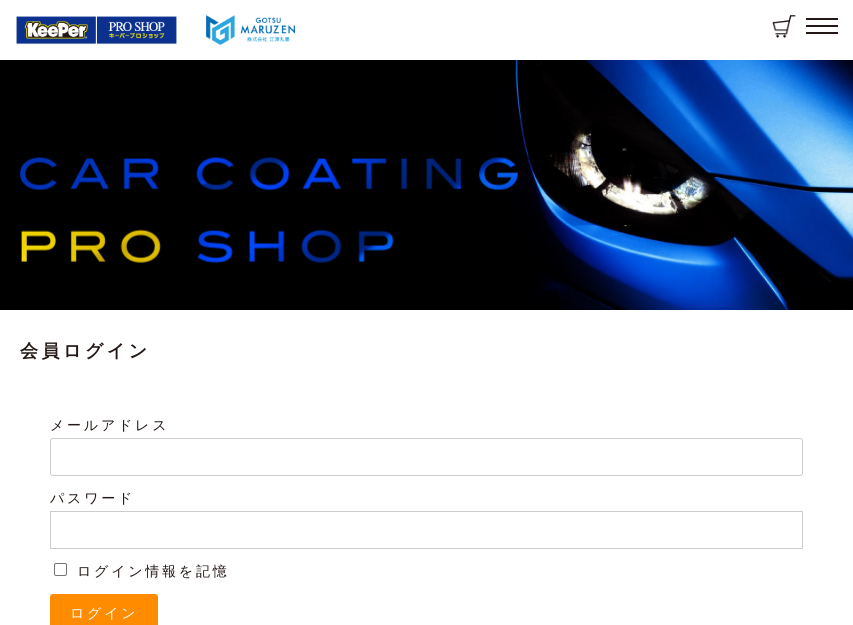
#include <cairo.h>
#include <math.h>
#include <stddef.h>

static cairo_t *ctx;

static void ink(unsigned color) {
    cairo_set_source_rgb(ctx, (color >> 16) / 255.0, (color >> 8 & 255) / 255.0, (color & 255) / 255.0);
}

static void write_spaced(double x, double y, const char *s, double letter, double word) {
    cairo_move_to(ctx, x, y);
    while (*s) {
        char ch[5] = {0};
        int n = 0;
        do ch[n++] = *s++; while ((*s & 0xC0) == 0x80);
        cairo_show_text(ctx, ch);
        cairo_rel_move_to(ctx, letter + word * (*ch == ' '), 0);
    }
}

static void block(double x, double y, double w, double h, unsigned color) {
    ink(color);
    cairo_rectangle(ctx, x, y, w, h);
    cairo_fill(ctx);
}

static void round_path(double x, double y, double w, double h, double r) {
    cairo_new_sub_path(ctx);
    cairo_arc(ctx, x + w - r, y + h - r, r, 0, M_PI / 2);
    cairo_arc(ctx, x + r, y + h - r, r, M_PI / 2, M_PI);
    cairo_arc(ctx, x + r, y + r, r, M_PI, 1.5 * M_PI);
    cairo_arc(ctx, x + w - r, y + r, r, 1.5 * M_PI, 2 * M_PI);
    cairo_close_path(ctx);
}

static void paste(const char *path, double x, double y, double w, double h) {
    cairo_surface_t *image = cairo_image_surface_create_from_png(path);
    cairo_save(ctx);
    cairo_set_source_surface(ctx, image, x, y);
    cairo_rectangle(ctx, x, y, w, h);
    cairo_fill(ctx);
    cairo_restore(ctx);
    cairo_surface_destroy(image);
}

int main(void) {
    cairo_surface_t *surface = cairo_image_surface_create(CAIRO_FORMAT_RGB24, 853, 625);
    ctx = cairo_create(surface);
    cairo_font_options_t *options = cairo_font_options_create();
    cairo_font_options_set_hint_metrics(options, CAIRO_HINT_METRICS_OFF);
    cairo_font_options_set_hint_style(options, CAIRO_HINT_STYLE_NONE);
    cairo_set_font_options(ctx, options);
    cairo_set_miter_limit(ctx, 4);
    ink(0xffffff);
    cairo_paint(ctx);
    paste("pic1.png", 16, 16, 161, 29);
    paste("pic2.png", 206, 15, 89, 30);
    paste("pic3.png", 772, 15, 24, 23);
    block(806, 18, 32, 2, 0x231815);
    block(806, 25, 32, 2, 0x231815);
    block(806, 32, 32, 2, 0x231815);
    paste("pic4.png", 0, 60, 853, 250);
    paste("pic5.png", 20, 157, 498, 106);
    cairo_select_font_face(ctx, "WenQuanYi Zen Hei", CAIRO_FONT_SLANT_NORMAL, CAIRO_FONT_WEIGHT_BOLD);
    cairo_set_font_size(ctx, 18);
    write_spaced(20, 357, "会員ログイン", 3.5, 0);
    cairo_select_font_face(ctx, "WenQuanYi Zen Hei Medium", CAIRO_FONT_SLANT_NORMAL, CAIRO_FONT_WEIGHT_NORMAL);
    cairo_set_font_size(ctx, 14);
    write_spaced(50, 430, "メールアドレス", 2.75, 0);
    round_path(50.5, 438.5, 752, 37, 2.5);
    ink(0xcccccc);
    cairo_set_line_width(ctx, 1);
    cairo_stroke(ctx);
    ink(0x231815);
    write_spaced(50, 503, "パスワード", 2.75, 0);
    cairo_rectangle(ctx, 50.5, 511.5, 752, 37);
    ink(0xcccccc);
    cairo_stroke(ctx);
    round_path(54.5, 563.5, 12, 12, 1.5);
    ink(0x767676);
    cairo_stroke(ctx);
    ink(0x231815);
    write_spaced(77, 576, "ログイン情報を記憶", 2.75, 0);
    ink(0xff8c00);
    round_path(50, 594, 108, 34, 3);
    cairo_fill(ctx);
    ink(0xffffff);
    write_spaced(70, 618, "ログイン", 2.75, 0);
    cairo_surface_write_to_png(surface, "screenshot.png");
    cairo_font_options_destroy(options);
    cairo_destroy(ctx);
    cairo_surface_destroy(surface);
    return 0;
}
